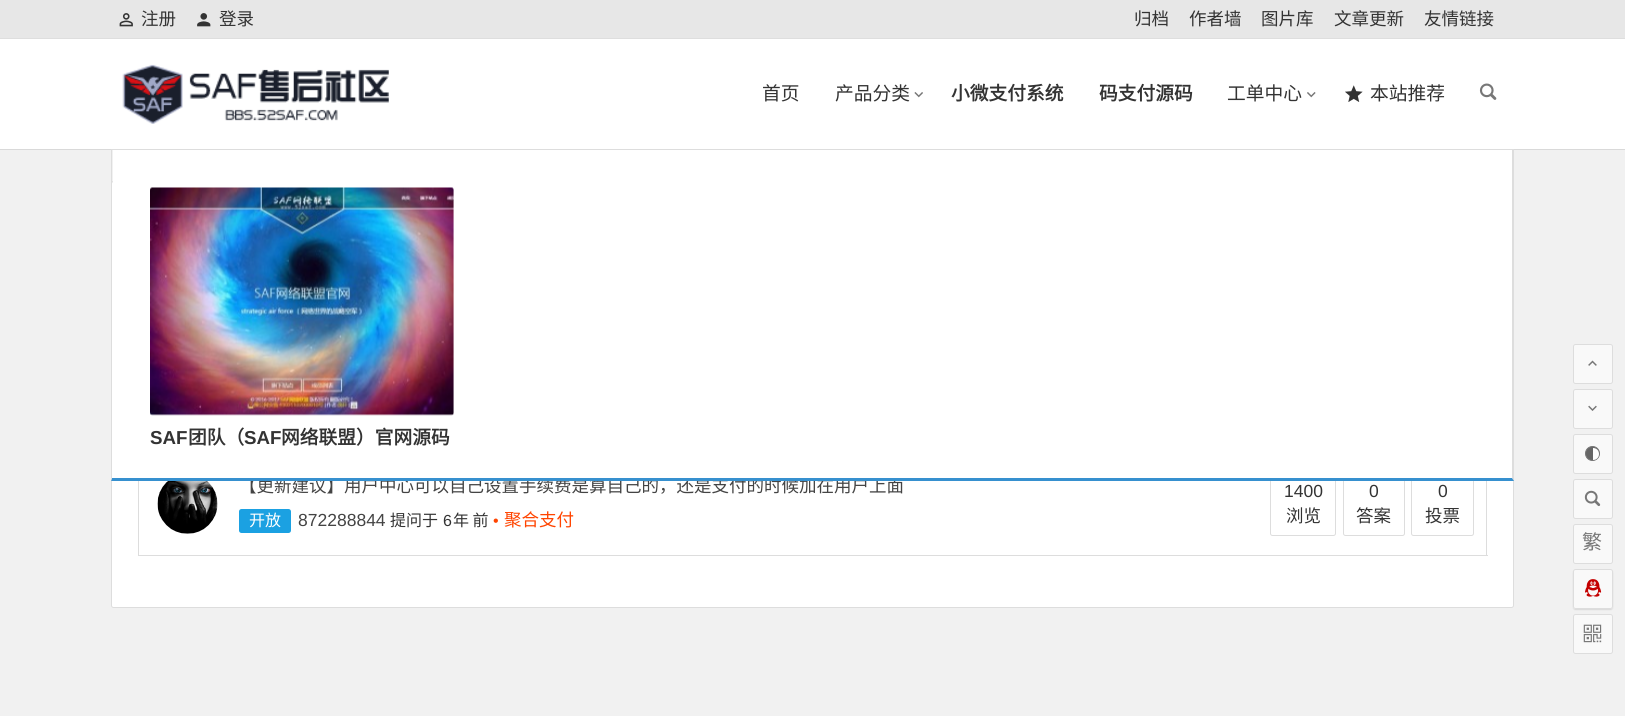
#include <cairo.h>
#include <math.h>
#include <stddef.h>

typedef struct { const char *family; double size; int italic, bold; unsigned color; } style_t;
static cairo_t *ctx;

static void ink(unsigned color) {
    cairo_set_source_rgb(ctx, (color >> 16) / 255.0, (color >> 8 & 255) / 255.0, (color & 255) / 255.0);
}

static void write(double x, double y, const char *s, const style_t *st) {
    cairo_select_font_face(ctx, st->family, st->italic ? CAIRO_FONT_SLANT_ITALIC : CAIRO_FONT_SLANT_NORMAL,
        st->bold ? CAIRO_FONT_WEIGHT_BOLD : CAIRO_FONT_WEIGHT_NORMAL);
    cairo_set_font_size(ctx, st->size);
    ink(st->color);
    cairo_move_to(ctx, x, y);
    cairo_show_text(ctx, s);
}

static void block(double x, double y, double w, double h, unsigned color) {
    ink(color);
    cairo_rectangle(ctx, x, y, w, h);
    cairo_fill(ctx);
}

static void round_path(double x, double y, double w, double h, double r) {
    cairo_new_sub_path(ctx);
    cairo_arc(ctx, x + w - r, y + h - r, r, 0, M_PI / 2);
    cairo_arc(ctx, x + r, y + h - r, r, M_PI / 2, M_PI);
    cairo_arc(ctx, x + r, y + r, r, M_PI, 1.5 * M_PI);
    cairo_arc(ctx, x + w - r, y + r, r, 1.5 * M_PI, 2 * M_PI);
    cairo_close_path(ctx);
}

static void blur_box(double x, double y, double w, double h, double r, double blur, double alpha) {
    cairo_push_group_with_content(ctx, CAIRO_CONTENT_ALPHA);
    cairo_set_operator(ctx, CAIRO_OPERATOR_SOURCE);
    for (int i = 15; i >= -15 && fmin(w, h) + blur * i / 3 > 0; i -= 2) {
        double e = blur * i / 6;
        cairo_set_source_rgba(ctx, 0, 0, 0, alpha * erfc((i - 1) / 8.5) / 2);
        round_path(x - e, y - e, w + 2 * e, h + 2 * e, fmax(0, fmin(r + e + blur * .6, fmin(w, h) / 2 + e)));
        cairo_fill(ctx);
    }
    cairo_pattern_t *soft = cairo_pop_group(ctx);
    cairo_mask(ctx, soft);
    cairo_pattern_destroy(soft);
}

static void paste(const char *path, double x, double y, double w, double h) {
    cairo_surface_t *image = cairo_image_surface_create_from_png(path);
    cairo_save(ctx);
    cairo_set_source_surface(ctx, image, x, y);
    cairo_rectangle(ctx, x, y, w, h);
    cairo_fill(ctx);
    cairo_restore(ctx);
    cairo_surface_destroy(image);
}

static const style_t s1 = {"Noto Sans CJK SC", 17.5, 0, 0, 0x333333};
static const style_t s2 = {"Noto Sans CJK SC", 18.75, 0, 0, 0x333333};
static const style_t s3 = {"Noto Sans CJK SC", 17.5, 0, 0, 0x444444};
static const style_t s4 = {"Liberation Sans", 18.75, 0, 1, 0x333333};
static const style_t s5 = {"Noto Sans CJK SC", 18.75, 0, 1, 0x333333};
static const style_t s6 = {"Liberation Sans", 17.5, 0, 0, 0x333333};
static const style_t s7 = {"Noto Sans CJK SC", 16, 0, 0, 0xffffff};
static const style_t s8 = {"Liberation Sans", 17.5, 0, 0, 0x444444};
static const style_t s9 = {"Noto Sans CJK SC", 16, 0, 0, 0x333333};
static const style_t s10 = {"Liberation Sans", 16, 0, 0, 0x333333};
static const style_t s11 = {"Liberation Sans", 16, 0, 0, 0xff4400};
static const style_t s12 = {"Noto Sans CJK SC", 17.5, 0, 0, 0xff4400};
static const style_t s13 = {"Noto Sans CJK SC", 20, 0, 0, 0x777777};

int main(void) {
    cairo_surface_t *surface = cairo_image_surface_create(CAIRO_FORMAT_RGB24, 1625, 716);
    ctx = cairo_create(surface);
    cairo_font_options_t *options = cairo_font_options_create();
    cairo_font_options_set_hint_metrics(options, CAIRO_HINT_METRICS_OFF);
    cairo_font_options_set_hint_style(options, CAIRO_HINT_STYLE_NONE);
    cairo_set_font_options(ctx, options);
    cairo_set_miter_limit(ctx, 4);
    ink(0xf1f1f1);
    cairo_paint(ctx);
    block(0, 0, 1625, 38, 0xe7e7e7);
    block(0, 38, 1625, 1, 0xdedede);
    paste("pic1.png", 119, 13, 14, 14);
    write(141, 25, "注册", &s1);
    paste("pic2.png", 197, 13, 14, 14);
    write(219, 25, "登录", &s1);
    write(1134, 25, "归档", &s1);
    write(1189, 25, "作者墙", &s1);
    write(1261, 25, "图片库", &s1);
    write(1334, 25, "文章更新", &s1);
    write(1424, 25, "友情链接", &s1);
    block(0, 149, 1625, 1, 0xd9d9d9);
    block(0, 39, 1625, 110, 0xffffff);
    paste("pic3.png", 122, 64, 267, 60);
    paste("pic4.png", 1479, 83, 18, 17);
    paste("pic5.png", 1345, 85, 18, 17);
    write(1370, 100, "本站推荐", &s2);
    ink(0xffffff);
    round_path(111.5, 181.5, 1402, 426, 2);
    cairo_fill_preserve(ctx);
    ink(0xdddddd);
    cairo_set_line_width(ctx, 1);
    cairo_stroke(ctx);
    write(239, 492, "【更新建议】用户中心可以自己设置手续费是算自己的，还是支付的时候加在用户上面", &s3);
    round_path(1270.5, 474.5, 65, 61, 2);
    ink(0xdddddd);
    cairo_stroke(ctx);
    round_path(1343.5, 474.5, 61, 61, 2);
    cairo_stroke(ctx);
    round_path(1411.5, 474.5, 62, 61, 2);
    cairo_stroke(ctx);
    block(113, 150, 1399, 328, 0xffffff);
    block(111, 149, 1403, 1, 0xdddddd);
    cairo_new_path(ctx);
    cairo_move_to(ctx, 1514, 149);
    cairo_line_to(ctx, 1514, 481);
    cairo_line_to(ctx, 1512, 478);
    cairo_line_to(ctx, 1512, 150);
    cairo_close_path(ctx);
    cairo_fill(ctx);
    ink(0x3690cf);
    cairo_new_path(ctx);
    cairo_move_to(ctx, 1514, 481);
    cairo_line_to(ctx, 111, 481);
    cairo_line_to(ctx, 112, 478);
    cairo_line_to(ctx, 1512, 478);
    cairo_close_path(ctx);
    cairo_fill(ctx);
    ink(0xdddddd);
    cairo_new_path(ctx);
    cairo_move_to(ctx, 111, 481);
    cairo_line_to(ctx, 111, 149);
    cairo_line_to(ctx, 112, 150);
    cairo_line_to(ctx, 112, 478);
    cairo_close_path(ctx);
    cairo_fill(ctx);
    paste("pic6.png", 150, 187, 304, 229);
    write(150, 444, "SAF", &s4);
    write(188, 444, "团队（", &s5);
    write(244, 444, "SAF", &s4);
    write(281, 444, "网络联盟）官网源码", &s5);
    write(762, 100, "首页", &s2);
    write(835, 100, "产品分类", &s2);
    paste("pic7.png", 914, 92, 9, 6);
    write(951, 100, "小微支付系统", &s5);
    write(1099, 100, "码支付源码", &s5);
    write(1227, 100, "工单中心", &s2);
    paste("pic8.png", 1307, 92, 9, 6);
    block(1486, 481, 1, 75, 0xdddddd);
    block(138, 555, 1350, 1, 0xdddddd);
    block(138, 481, 1, 75, 0xdddddd);
    write(1284, 497, "1400", &s6);
    write(1286, 522, "浏览", &s1);
    write(1369, 497, "0", &s6);
    write(1356, 522, "答案", &s1);
    write(1438, 497, "0", &s6);
    write(1425, 522, "投票", &s1);
    ink(0x1ba1e2);
    round_path(239, 509, 52, 24, 2.5);
    cairo_fill(ctx);
    write(249, 526, "开放", &s7);
    paste("pic9.png", 157, 481, 61, 53);
    write(298, 526, "872288844", &s8);
    write(390, 526, "提问于", &s9);
    write(443, 526, "6", &s10);
    write(453, 526, "年 前", &s9);
    write(493, 526, "•", &s11);
    write(504, 526, "聚合支付", &s12);
    ink(0xf9f9f9);
    round_path(1573.5, 344.5, 39, 39, 2);
    cairo_fill_preserve(ctx);
    ink(0xdddddd);
    cairo_stroke(ctx);
    paste("pic10.png", 1588, 360, 9, 6);
    ink(0xf9f9f9);
    round_path(1573.5, 389.5, 39, 39, 2);
    cairo_fill_preserve(ctx);
    ink(0xdddddd);
    cairo_stroke(ctx);
    paste("pic11.png", 1588, 405, 9, 6);
    ink(0xf9f9f9);
    round_path(1573.5, 434.5, 39, 39, 2);
    cairo_fill_preserve(ctx);
    ink(0xdddddd);
    cairo_stroke(ctx);
    ink(0x666666);
    cairo_arc(ctx, 1592.5, 453.5, 7, 0, 2 * M_PI);
    cairo_fill_preserve(ctx);
    ink(0x777777);
    cairo_stroke(ctx);
    ink(0xffffff);
    cairo_new_path(ctx);
    cairo_move_to(ctx, 1593, 448);
    cairo_curve_to(ctx, 1596.5, 448, 1599, 450.5, 1599, 454);
    cairo_curve_to(ctx, 1599, 457.5, 1596.5, 460, 1593, 460);
    cairo_close_path(ctx);
    cairo_fill(ctx);
    ink(0xf9f9f9);
    round_path(1573.5, 479.5, 39, 39, 2);
    cairo_fill_preserve(ctx);
    ink(0xdddddd);
    cairo_stroke(ctx);
    paste("pic12.png", 1584, 490, 17, 17);
    ink(0xf9f9f9);
    round_path(1573.5, 524.5, 39, 39, 2);
    cairo_fill_preserve(ctx);
    ink(0xdddddd);
    cairo_stroke(ctx);
    write(1582, 549, "繁", &s13);
    cairo_save(ctx);
    cairo_set_fill_rule(ctx, CAIRO_FILL_RULE_EVEN_ODD);
    cairo_new_path(ctx);
    cairo_move_to(ctx, 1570, 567);
    cairo_line_to(ctx, 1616, 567);
    cairo_line_to(ctx, 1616, 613);
    cairo_line_to(ctx, 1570, 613);
    cairo_close_path(ctx);
    cairo_move_to(ctx, 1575.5, 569);
    cairo_line_to(ctx, 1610.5, 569);
    cairo_curve_to(ctx, 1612, 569, 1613, 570, 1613, 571.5);
    cairo_line_to(ctx, 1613, 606.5);
    cairo_curve_to(ctx, 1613, 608, 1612, 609, 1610.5, 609);
    cairo_line_to(ctx, 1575.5, 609);
    cairo_curve_to(ctx, 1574, 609, 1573, 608, 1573, 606.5);
    cairo_line_to(ctx, 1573, 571.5);
    cairo_curve_to(ctx, 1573, 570, 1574, 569, 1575.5, 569);
    cairo_close_path(ctx);
    cairo_clip(ctx);
    ink(0x000000);
    blur_box(1573, 570, 40, 40, 2.5, 0.5, 0.1);
    cairo_restore(ctx);
    cairo_set_source_rgba(ctx, 1, 1, 1, 0.6);
    round_path(1573.5, 569.5, 39, 39, 2);
    cairo_fill_preserve(ctx);
    ink(0xdddddd);
    cairo_stroke(ctx);
    paste("pic13.png", 1585, 579, 17, 18);
    ink(0xf9f9f9);
    round_path(1573.5, 614.5, 39, 39, 2);
    cairo_fill_preserve(ctx);
    ink(0xdddddd);
    cairo_stroke(ctx);
    paste("pic14.png", 1583, 624, 19, 19);
    cairo_surface_write_to_png(surface, "screenshot.png");
    cairo_font_options_destroy(options);
    cairo_destroy(ctx);
    cairo_surface_destroy(surface);
    return 0;
}
